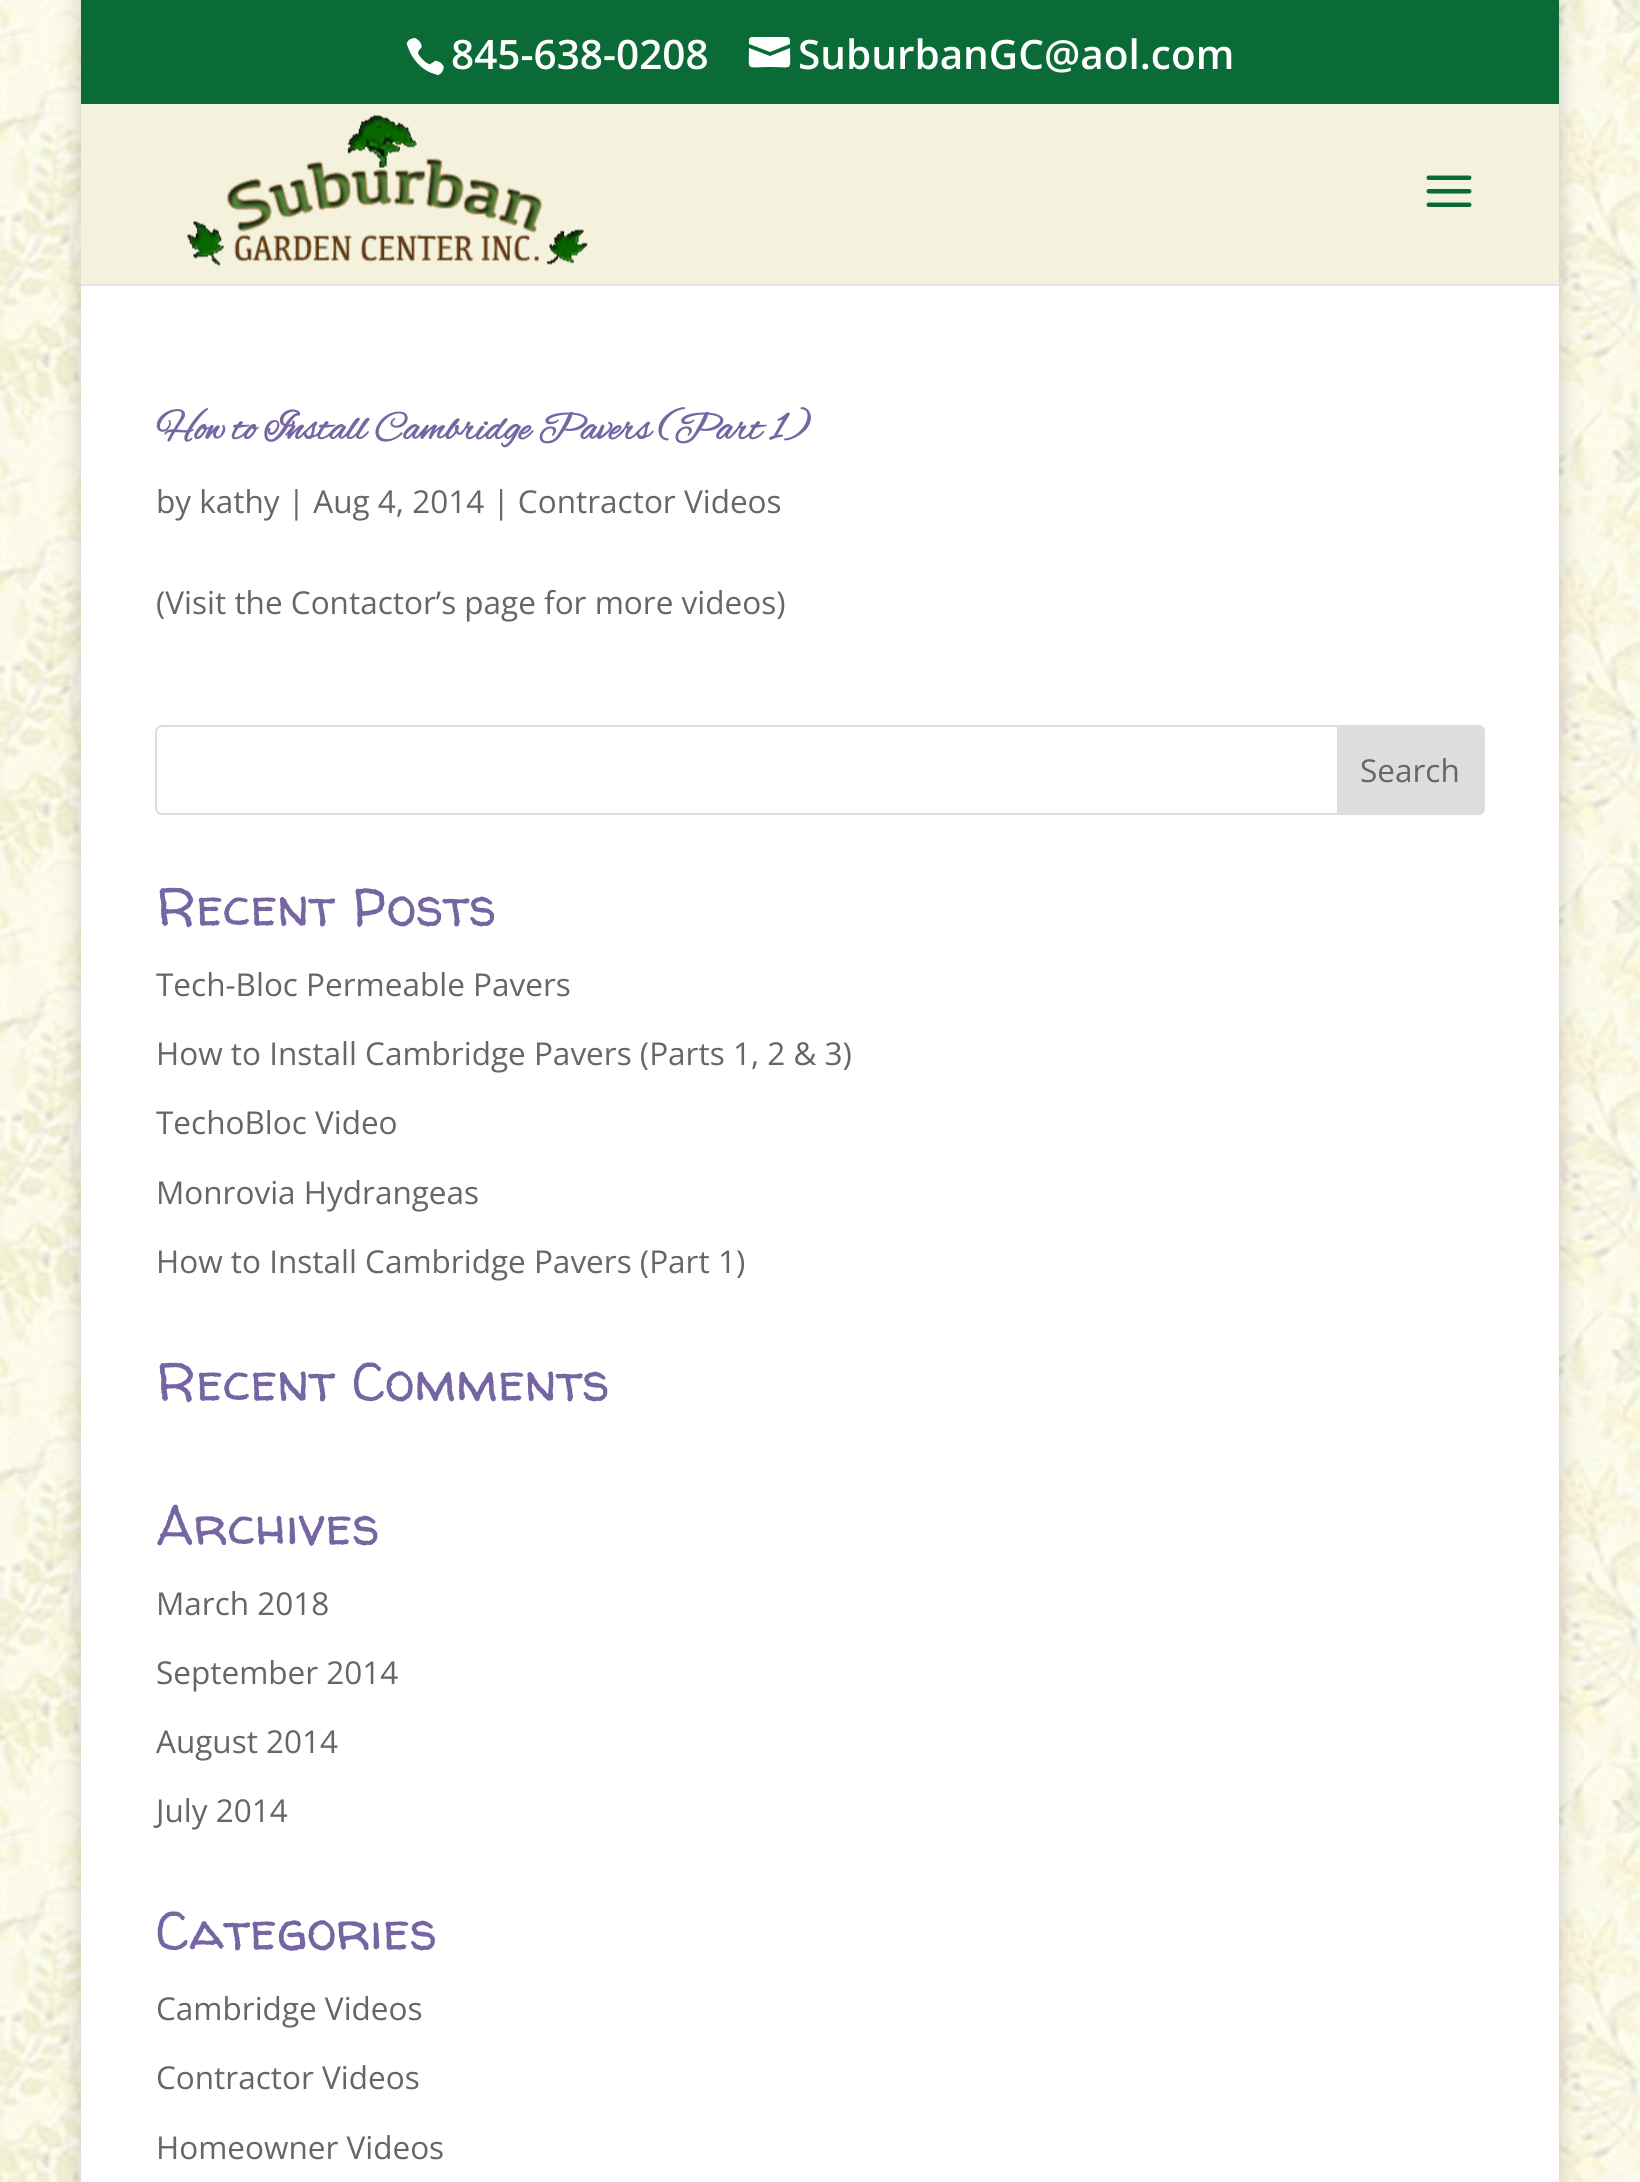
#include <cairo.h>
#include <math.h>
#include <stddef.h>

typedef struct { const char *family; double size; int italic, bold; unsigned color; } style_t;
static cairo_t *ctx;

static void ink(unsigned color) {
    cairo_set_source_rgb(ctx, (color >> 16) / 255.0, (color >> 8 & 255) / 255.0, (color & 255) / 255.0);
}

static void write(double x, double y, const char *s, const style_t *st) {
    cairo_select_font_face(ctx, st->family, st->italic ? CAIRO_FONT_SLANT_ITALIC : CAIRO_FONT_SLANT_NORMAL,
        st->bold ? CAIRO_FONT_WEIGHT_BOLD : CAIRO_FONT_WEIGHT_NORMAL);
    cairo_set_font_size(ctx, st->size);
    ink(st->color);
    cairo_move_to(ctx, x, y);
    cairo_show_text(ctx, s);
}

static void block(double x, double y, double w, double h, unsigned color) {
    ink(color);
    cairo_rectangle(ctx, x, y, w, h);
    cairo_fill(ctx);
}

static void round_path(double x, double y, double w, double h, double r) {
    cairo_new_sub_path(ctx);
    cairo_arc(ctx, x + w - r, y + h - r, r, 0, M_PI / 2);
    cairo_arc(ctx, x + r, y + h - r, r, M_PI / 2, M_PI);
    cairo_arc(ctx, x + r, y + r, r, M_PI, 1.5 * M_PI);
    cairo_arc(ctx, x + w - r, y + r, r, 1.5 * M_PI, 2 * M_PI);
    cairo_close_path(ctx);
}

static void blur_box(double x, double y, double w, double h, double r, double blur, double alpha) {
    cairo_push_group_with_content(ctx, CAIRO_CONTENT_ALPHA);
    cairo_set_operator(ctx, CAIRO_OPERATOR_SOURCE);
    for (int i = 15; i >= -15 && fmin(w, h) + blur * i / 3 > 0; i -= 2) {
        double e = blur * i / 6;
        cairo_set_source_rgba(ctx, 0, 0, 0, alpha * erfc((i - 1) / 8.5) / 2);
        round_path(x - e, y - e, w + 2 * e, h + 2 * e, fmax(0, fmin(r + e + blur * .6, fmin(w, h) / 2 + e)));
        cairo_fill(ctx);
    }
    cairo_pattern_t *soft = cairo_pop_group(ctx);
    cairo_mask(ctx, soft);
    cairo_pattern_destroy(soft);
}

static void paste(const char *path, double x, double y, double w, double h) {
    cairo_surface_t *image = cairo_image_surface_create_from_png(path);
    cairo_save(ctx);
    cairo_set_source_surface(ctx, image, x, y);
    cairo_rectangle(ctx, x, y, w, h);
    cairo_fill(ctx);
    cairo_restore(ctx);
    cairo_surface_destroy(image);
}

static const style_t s1 = {"Open Sans SemiBold", 40.5, 0, 0, 0xffffff};
static const style_t s2 = {"Alex Brush", 40.5, 0, 1, 0x7665a3};
static const style_t s3 = {"Open Sans", 31.5, 0, 0, 0x666666};
static const style_t s4 = {"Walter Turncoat", 54, 0, 0, 0x7665a3};

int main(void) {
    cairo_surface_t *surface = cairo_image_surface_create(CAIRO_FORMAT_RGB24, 1640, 2182);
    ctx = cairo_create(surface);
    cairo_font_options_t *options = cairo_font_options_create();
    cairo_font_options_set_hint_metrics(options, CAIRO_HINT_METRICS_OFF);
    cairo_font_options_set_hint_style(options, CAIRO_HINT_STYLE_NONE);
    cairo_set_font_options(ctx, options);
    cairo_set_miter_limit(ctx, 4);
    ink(0xffffff);
    cairo_paint(ctx);
    paste("pic1.png", 0, 0, 1640, 2182);
    ink(0x000000);
    blur_box(81, 0, 1478, 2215, 0, 11, 0.2);
    block(81, 0, 1478, 104, 0x0a6b37);
    paste("pic2.png", 406, 38, 38, 38);
    write(451, 69, "845-638-0208", &s1);
    write(798, 69, "SuburbanGC@aol.com", &s1);
    cairo_new_path(ctx);
    cairo_move_to(ctx, 787, 37);
    cairo_line_to(ctx, 752, 37);
    cairo_curve_to(ctx, 748, 37, 749, 42, 749, 44);
    cairo_line_to(ctx, 770, 52);
    cairo_line_to(ctx, 790, 44);
    cairo_curve_to(ctx, 790, 42, 791, 37, 787, 37);
    cairo_close_path(ctx);
    cairo_move_to(ctx, 749, 48);
    cairo_curve_to(ctx, 749, 72, 745, 67, 770, 67);
    cairo_curve_to(ctx, 794, 67, 790, 72, 790, 48);
    cairo_line_to(ctx, 770, 56);
    cairo_close_path(ctx);
    cairo_fill(ctx);
    block(81, 284, 1478, 2, 0xe6e6e6);
    block(81, 104, 1478, 180, 0xf4f1dd);
    paste("pic3.png", 187, 115, 401, 151);
    paste("pic4.png", 1426, 175, 46, 32);
    block(81, 286, 1478, 1896, 0xffffff);
    write(156, 439, "How to Install Cambridge Pavers (Part 1)", &s2);
    write(156, 513, "by kathy | Aug 4, 2014 | Contractor Videos", &s3);
    write(156, 614, "(Visit the Contactor’s page for more videos)", &s3);
    round_path(156, 726, 1328, 88, 6);
    ink(0xdddddd);
    cairo_stroke(ctx);
    cairo_new_path(ctx);
    cairo_move_to(ctx, 1338, 726);
    cairo_line_to(ctx, 1478, 726);
    cairo_curve_to(ctx, 1481.5, 726, 1484, 728.5, 1484, 732);
    cairo_line_to(ctx, 1484, 808);
    cairo_curve_to(ctx, 1484, 811.5, 1481.5, 814, 1478, 814);
    cairo_line_to(ctx, 1338, 814);
    cairo_close_path(ctx);
    cairo_fill_preserve(ctx);
    cairo_stroke(ctx);
    write(1360, 782, "Search", &s3);
    write(156, 926, "Recent Posts", &s4);
    write(156, 996, "Tech-Bloc Permeable Pavers", &s3);
    write(156, 1065, "How to Install Cambridge Pavers (Parts 1, 2 & 3)", &s3);
    write(156, 1134, "TechoBloc Video", &s3);
    write(156, 1204, "Monrovia Hydrangeas", &s3);
    write(156, 1273, "How to Install Cambridge Pavers (Part 1)", &s3);
    write(156, 1401, "Recent Comments", &s4);
    write(156, 1545, "Archives", &s4);
    write(156, 1615, "March 2018", &s3);
    write(156, 1684, "September 2014", &s3);
    write(156, 1753, "August 2014", &s3);
    write(156, 1822, "July 2014", &s3);
    write(156, 1950, "Categories", &s4);
    write(156, 2020, "Cambridge Videos", &s3);
    write(156, 2089, "Contractor Videos", &s3);
    write(156, 2159, "Homeowner Videos", &s3);
    cairo_surface_write_to_png(surface, "screenshot.png");
    cairo_font_options_destroy(options);
    cairo_destroy(ctx);
    cairo_surface_destroy(surface);
    return 0;
}
